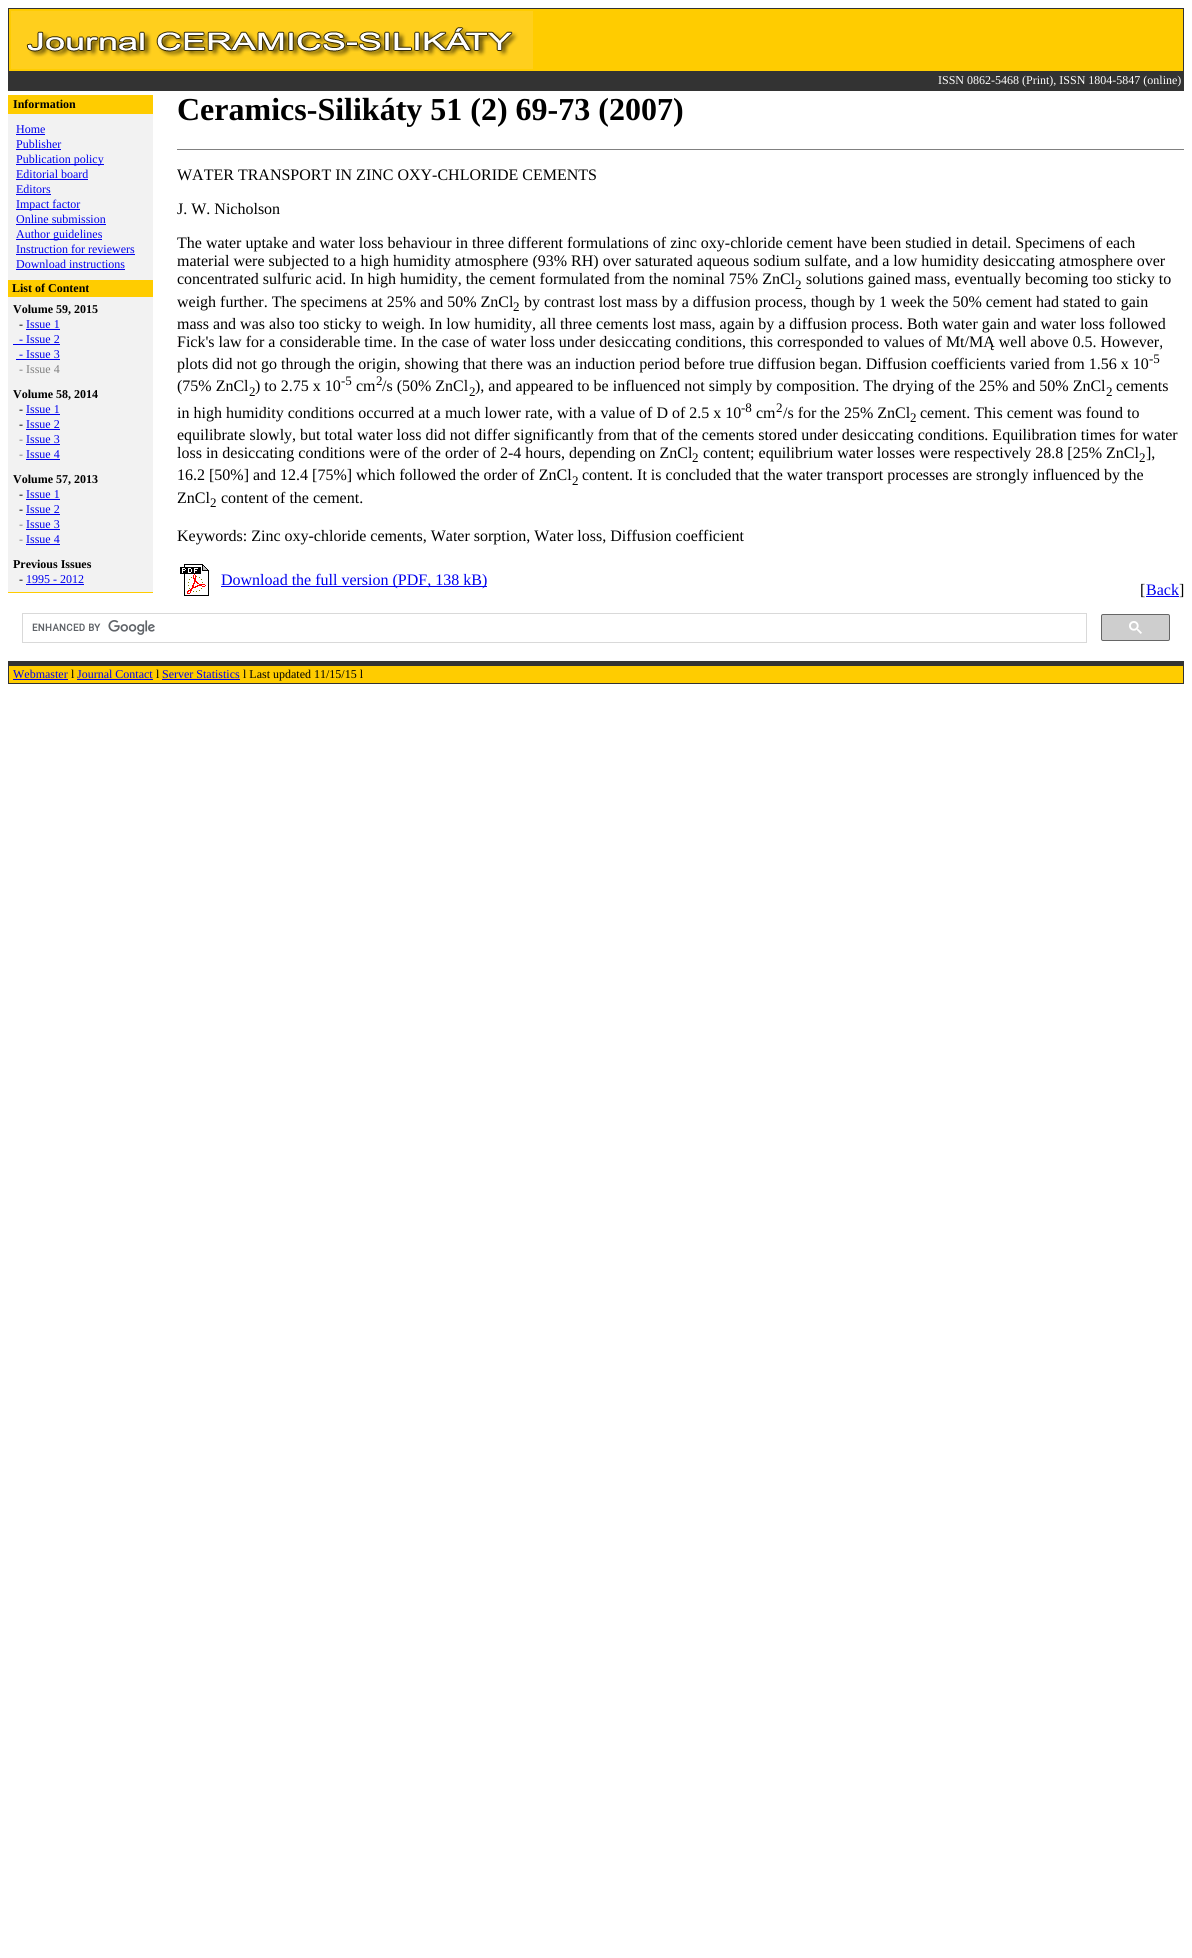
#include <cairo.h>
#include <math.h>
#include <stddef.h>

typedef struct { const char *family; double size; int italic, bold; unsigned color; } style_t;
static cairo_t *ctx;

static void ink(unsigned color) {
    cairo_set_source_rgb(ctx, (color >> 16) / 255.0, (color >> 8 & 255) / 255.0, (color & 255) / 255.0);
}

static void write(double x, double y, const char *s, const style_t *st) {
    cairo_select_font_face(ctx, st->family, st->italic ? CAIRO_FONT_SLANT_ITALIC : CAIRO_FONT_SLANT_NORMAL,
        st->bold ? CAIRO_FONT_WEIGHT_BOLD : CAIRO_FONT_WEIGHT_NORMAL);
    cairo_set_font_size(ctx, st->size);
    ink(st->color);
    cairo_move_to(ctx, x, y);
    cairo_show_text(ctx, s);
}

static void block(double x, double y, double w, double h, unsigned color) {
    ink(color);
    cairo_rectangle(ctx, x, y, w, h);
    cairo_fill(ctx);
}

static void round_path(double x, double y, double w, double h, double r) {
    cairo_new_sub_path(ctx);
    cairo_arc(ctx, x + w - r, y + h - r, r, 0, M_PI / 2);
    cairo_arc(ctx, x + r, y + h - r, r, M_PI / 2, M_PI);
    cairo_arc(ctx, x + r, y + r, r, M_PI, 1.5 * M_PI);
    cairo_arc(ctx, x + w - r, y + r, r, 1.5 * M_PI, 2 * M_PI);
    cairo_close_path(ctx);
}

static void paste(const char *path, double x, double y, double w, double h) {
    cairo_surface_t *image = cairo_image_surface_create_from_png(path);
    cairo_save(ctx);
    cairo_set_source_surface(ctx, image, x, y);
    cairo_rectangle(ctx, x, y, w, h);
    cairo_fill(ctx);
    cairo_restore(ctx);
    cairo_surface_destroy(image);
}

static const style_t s1 = {"Liberation Serif", 12, 0, 0, 0xffffff};
static const style_t s2 = {"Liberation Serif", 12, 0, 1, 0x000000};
static const style_t s3 = {"Liberation Serif", 12, 0, 0, 0x0000ee};
static const style_t s4 = {"Liberation Serif", 12, 0, 0, 0x000000};
static const style_t s5 = {"Liberation Serif", 12, 0, 0, 0x808080};
static const style_t s6 = {"Liberation Serif", 32, 0, 1, 0x000000};
static const style_t s7 = {"Liberation Serif", 16, 0, 0, 0x000000};
static const style_t s8 = {"Liberation Serif", 13, 0, 0, 0x000000};
static const style_t s9 = {"Liberation Serif", 16, 0, 0, 0x0000ee};

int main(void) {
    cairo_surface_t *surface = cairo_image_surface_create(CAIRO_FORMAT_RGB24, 1192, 1958);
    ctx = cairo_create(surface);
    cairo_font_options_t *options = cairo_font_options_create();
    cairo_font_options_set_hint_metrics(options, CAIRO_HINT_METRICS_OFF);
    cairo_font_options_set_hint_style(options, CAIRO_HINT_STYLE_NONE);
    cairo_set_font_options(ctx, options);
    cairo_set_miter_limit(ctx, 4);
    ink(0xffffff);
    cairo_paint(ctx);
    block(8, 8, 1176, 83, 0x333333);
    block(9, 9, 1174, 62, 0xffcc00);
    paste("pic1.png", 11, 11, 522, 58);
    write(938, 84, "ISSN 0862-5468 (Print), ISSN 1804-5847 (online)", &s1);
    block(8, 95, 145, 19, 0xffcc00);
    write(13, 108, "Information", &s2);
    block(8, 114, 145, 166, 0xf2f2f2);
    write(16, 133, "Home", &s3);
    block(16, 134, 29, 1, 0x0000ee);
    write(16, 148, "Publisher", &s3);
    block(16, 149, 45, 1, 0x0000ee);
    block(16, 164, 88, 1, 0x0000ee);
    write(16, 163, "Publication policy", &s3);
    write(16, 178, "Editorial board", &s3);
    block(16, 179, 72, 1, 0x0000ee);
    write(16, 193, "Editors", &s3);
    block(16, 194, 35, 1, 0x0000ee);
    block(16, 209, 64, 1, 0x0000ee);
    write(16, 208, "Impact factor", &s3);
    write(16, 223, "Online submission", &s3);
    block(16, 224, 90, 1, 0x0000ee);
    block(16, 239, 86, 1, 0x0000ee);
    write(16, 238, "Author guidelines", &s3);
    write(16, 253, "Instruction for reviewers", &s3);
    block(16, 254, 119, 1, 0x0000ee);
    write(16, 268, "Download instructions", &s3);
    block(16, 269, 109, 1, 0x0000ee);
    block(8, 280, 145, 17, 0xffcc00);
    write(12, 292, "List of Content", &s2);
    block(8, 297, 145, 295, 0xf2f2f2);
    write(13, 313, "Volume 59, 2015", &s2);
    write(19, 328, "-", &s4);
    write(26, 328, "Issue 1", &s3);
    block(26, 329, 34, 1, 0x0000ee);
    write(19, 343, "- Issue 2", &s3);
    block(13, 344, 47, 1, 0x0000ee);
    write(19, 358, "- Issue 3", &s3);
    block(16, 359, 44, 1, 0x0000ee);
    write(19, 373, "- Issue 4", &s5);
    write(13, 398, "Volume 58, 2014", &s2);
    write(19, 413, "-", &s4);
    write(26, 413, "Issue 1", &s3);
    block(26, 414, 34, 1, 0x0000ee);
    write(19, 428, "-", &s4);
    write(26, 428, "Issue 2", &s3);
    block(26, 429, 34, 1, 0x0000ee);
    write(19, 443, "-", &s5);
    write(26, 443, "Issue 3", &s3);
    block(26, 444, 34, 1, 0x0000ee);
    write(19, 458, "-", &s5);
    write(26, 458, "Issue 4", &s3);
    block(26, 459, 34, 1, 0x0000ee);
    write(13, 483, "Volume 57, 2013", &s2);
    write(19, 498, "-", &s4);
    write(26, 498, "Issue 1", &s3);
    block(26, 499, 34, 1, 0x0000ee);
    write(19, 513, "-", &s4);
    write(26, 513, "Issue 2", &s3);
    block(26, 514, 34, 1, 0x0000ee);
    write(19, 528, "-", &s5);
    write(26, 528, "Issue 3", &s3);
    block(26, 529, 34, 1, 0x0000ee);
    write(19, 543, "-", &s5);
    write(26, 543, "Issue 4", &s3);
    block(26, 544, 34, 1, 0x0000ee);
    write(13, 568, "Previous Issues", &s2);
    write(19, 583, "-", &s4);
    write(26, 583, "1995 - 2012", &s3);
    block(26, 584, 58, 1, 0x0000ee);
    block(8, 592, 145, 1, 0xffcc00);
    write(177, 120, "Ceramics-Silikáty 51 (2) 69-73 (2007)", &s6);
    block(177, 149, 1007, 1, 0x808080);
    write(177, 180, "WATER TRANSPORT IN ZINC OXY-CHLORIDE CEMENTS", &s7);
    write(177, 214, "J. W. Nicholson", &s7);
    write(177, 248, "The water uptake and water loss behaviour in three different formulations of zinc oxy-chloride cement have been studied in detail. Specimens of each", &s7);
    write(177, 266, "material were subjected to a high humidity atmosphere (93% RH) over saturated aqueous sodium sulfate, and a low humidity desiccating atmosphere over", &s7);
    write(177, 284, "concentrated sulfuric acid. In high humidity, the cement formulated from the nominal 75% ZnCl", &s7);
    write(795, 289, "2", &s8);
    write(806, 284, "solutions gained mass, eventually becoming too sticky to", &s7);
    write(177, 307, "weigh further. The specimens at 25% and 50% ZnCl", &s7);
    write(513, 311, "2", &s8);
    write(524, 307, "by contrast lost mass by a diffusion process, though by 1 week the 50% cement had stated to gain", &s7);
    write(177, 329, "mass and was also too sticky to weigh. In low humidity, all three cements lost mass, again by a diffusion process. Both water gain and water loss followed", &s7);
    write(177, 347, "Fick's law for a considerable time. In the case of water loss under desiccating conditions, this corresponded to values of Mt/MĄ well above 0.5. However,", &s7);
    write(177, 369, "plots did not go through the origin, showing that there was an induction period before true diffusion began. Diffusion coefficients varied from 1.56 x 10", &s7);
    write(1149, 363, "-5", &s8);
    write(177, 391, "(75% ZnCl", &s7);
    write(249, 396, "2", &s8);
    write(255, 391, ") to 2.75 x 10", &s7);
    write(341, 385, "-5", &s8);
    write(356, 391, "cm", &s7);
    write(376, 385, "2", &s8);
    write(382, 391, "/s (50% ZnCl", &s7);
    write(469, 396, "2", &s8);
    write(475, 391, "), and appeared to be influenced not simply by composition. The drying of the 25% and 50% ZnCl", &s7);
    write(1106, 396, "2", &s8);
    write(1116, 391, "cements", &s7);
    write(177, 418, "in high humidity conditions occurred at a much lower rate, with a value of D of 2.5 x 10", &s7);
    write(741, 412, "-8", &s8);
    write(756, 418, "cm", &s7);
    write(776, 412, "2", &s8);
    write(783, 418, "/s for the 25% ZnCl", &s7);
    write(910, 422, "2", &s8);
    write(920, 418, "cement. This cement was found to", &s7);
    write(177, 440, "equilibrate slowly, but total water loss did not differ significantly from that of the cements stored under desiccating conditions. Equilibration times for water", &s7);
    write(177, 458, "loss in desiccating conditions were of the order of 2-4 hours, depending on ZnCl", &s7);
    write(692, 462, "2", &s8);
    write(703, 458, "content; equilibrium water losses were respectively 28.8 [25% ZnCl", &s7);
    write(1139, 462, "2", &s8);
    write(1146, 458, "],", &s7);
    write(177, 480, "16.2 [50%] and 12.4 [75%] which followed the order of ZnCl", &s7);
    write(572, 485, "2", &s8);
    write(582, 480, "content. It is concluded that the water transport processes are strongly influenced by the", &s7);
    write(177, 503, "ZnCl", &s7);
    write(210, 507, "2", &s8);
    write(221, 503, "content of the cement.", &s7);
    write(177, 541, "Keywords: Zinc oxy-chloride cements, Water sorption, Water loss, Diffusion coefficient", &s7);
    paste("pic2.png", 180, 564, 29, 32);
    block(221, 586, 266, 1, 0x0000ee);
    write(221, 585, "Download the full version (PDF, 138 kB)", &s9);
    write(1140, 595, "[", &s7);
    write(1146, 595, "Back", &s9);
    block(1146, 596, 33, 1, 0x0000ee);
    write(1179, 595, "]", &s7);
    cairo_rectangle(ctx, 22.5, 613.5, 1064, 29);
    ink(0xd9d9d9);
    cairo_set_line_width(ctx, 1);
    cairo_stroke(ctx);
    paste("pic3.png", 32, 620, 123, 15);
    ink(0xcecece);
    round_path(1101.5, 614.5, 68, 26, 1.5);
    cairo_fill_preserve(ctx);
    ink(0x666666);
    cairo_stroke(ctx);
    paste("pic4.png", 1129, 621, 13, 13);
    block(8, 661, 1176, 23, 0x333333);
    block(9, 666, 1174, 17, 0xffcc00);
    write(13, 678, "Webmaster", &s3);
    block(13, 679, 55, 1, 0x0000ee);
    write(71, 678, "l", &s4);
    write(77, 678, "Journal Contact", &s3);
    block(77, 679, 76, 1, 0x0000ee);
    write(156, 678, "l", &s4);
    write(162, 678, "Server Statistics", &s3);
    block(162, 679, 78, 1, 0x0000ee);
    write(243, 678, "l Last updated 11/15/15 l", &s4);
    cairo_surface_write_to_png(surface, "screenshot.png");
    cairo_font_options_destroy(options);
    cairo_destroy(ctx);
    cairo_surface_destroy(surface);
    return 0;
}
